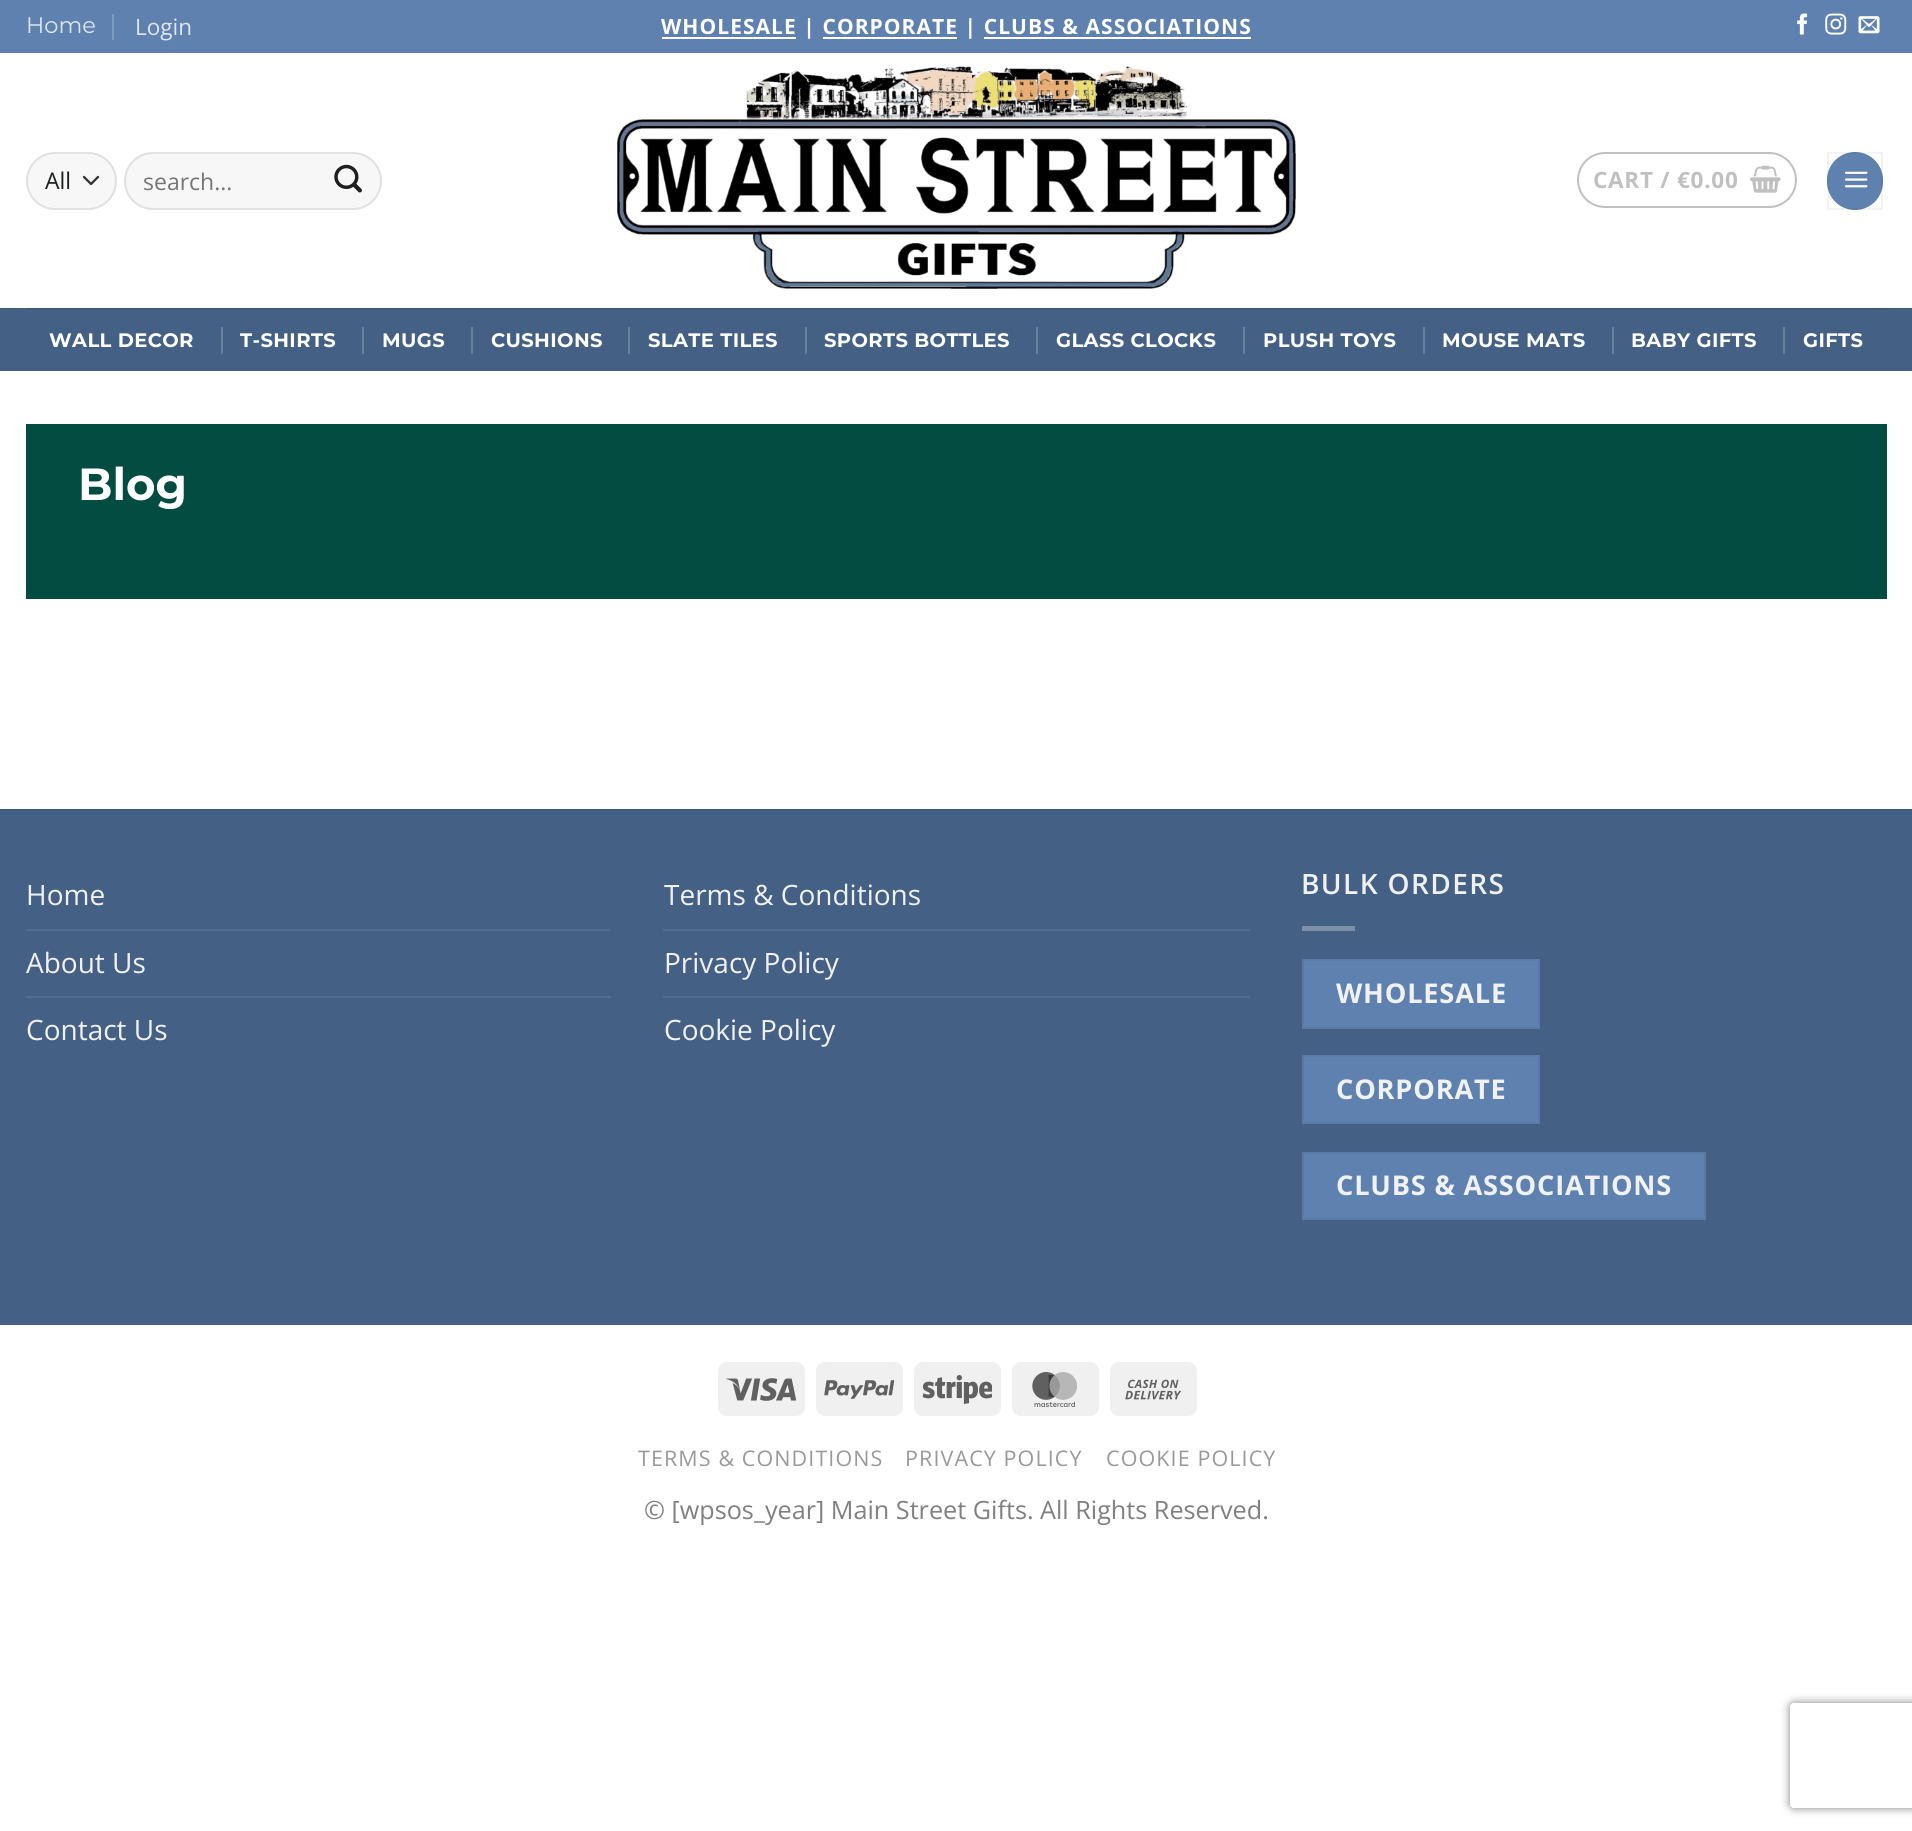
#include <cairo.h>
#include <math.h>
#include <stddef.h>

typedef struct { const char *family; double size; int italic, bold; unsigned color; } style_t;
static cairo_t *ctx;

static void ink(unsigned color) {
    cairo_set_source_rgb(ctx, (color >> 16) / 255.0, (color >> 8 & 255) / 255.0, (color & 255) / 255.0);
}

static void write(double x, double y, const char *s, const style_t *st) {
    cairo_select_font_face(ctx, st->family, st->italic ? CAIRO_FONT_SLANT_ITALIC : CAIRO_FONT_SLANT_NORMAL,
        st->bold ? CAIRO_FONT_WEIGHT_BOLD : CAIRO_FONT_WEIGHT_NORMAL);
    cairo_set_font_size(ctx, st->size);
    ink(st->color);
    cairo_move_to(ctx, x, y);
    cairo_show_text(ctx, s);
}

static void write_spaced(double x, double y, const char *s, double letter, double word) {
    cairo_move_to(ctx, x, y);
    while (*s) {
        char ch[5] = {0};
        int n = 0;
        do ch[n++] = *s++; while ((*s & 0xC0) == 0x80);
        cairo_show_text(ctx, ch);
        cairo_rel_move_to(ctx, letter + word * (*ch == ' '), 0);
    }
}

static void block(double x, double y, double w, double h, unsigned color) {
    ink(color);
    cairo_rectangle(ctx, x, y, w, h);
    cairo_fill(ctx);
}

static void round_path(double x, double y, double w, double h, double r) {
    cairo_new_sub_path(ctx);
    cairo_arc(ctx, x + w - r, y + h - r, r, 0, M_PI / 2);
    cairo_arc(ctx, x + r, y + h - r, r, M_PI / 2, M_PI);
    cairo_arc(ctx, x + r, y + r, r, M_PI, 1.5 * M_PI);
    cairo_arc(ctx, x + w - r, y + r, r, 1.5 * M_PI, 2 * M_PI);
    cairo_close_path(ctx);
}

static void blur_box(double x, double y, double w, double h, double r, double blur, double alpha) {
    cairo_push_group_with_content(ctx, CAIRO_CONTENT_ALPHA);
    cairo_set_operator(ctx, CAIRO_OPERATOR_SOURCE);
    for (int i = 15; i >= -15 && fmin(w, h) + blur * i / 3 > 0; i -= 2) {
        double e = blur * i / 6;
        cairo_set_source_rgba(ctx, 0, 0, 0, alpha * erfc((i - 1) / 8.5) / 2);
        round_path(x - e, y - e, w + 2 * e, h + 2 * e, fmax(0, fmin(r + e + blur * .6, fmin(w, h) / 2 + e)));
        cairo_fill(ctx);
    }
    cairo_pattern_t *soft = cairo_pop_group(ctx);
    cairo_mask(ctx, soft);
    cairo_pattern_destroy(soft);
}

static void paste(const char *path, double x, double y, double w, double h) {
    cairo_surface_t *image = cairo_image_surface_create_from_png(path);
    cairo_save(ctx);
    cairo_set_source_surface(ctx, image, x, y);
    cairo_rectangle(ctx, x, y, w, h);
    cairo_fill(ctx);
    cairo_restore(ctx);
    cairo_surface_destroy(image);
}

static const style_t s1 = {"Montserrat", 22.5, 0, 0, 0xdfe6ef};
static const style_t s2 = {"Open Sans", 22.5, 0, 0, 0xdfe6ef};
static const style_t s3 = {"Open Sans", 23, 0, 0, 0x1d1f20};
static const style_t s4 = {"Open Sans", 23, 0, 0, 0x757575};
static const style_t s5 = {"Montserrat", 45, 0, 1, 0xffffff};
static const style_t s6 = {"Open Sans", 28, 0, 0, 0xf1f1f1};
static const style_t s7 = {"Open Sans", 25.2, 0, 0, 0x808080};

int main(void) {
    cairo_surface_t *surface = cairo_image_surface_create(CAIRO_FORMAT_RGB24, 1912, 1831);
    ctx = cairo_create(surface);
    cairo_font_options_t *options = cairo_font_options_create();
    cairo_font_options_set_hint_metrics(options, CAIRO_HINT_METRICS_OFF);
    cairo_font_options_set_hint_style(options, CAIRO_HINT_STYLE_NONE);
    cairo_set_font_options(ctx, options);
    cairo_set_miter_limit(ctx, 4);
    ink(0xffffff);
    cairo_paint(ctx);
    block(0, 0, 1912, 53, 0x5e81af);
    write(26, 33, "Home", &s1);
    block(112, 14, 2, 26, 0x7e9abf);
    write(135, 35, "Login", &s2);
    block(662, 37, 134, 2, 0xffffff);
    cairo_select_font_face(ctx, "Open Sans", CAIRO_FONT_SLANT_NORMAL, CAIRO_FONT_WEIGHT_BOLD);
    cairo_set_font_size(ctx, 21);
    write_spaced(661, 34, "WHOLESALE | CORPORATE | CLUBS & ASSOCIATIONS", 1.05, 0);
    block(823, 37, 134, 2, 0xffffff);
    block(984, 37, 267, 2, 0xffffff);
    paste("pic1.png", 1797, 13, 11, 22);
    paste("pic2.png", 1825, 13, 22, 22);
    paste("pic3.png", 1858, 16, 22, 18);
    ink(0xf7f7f7);
    round_path(26, 152, 91, 58, 29);
    cairo_fill(ctx);
    cairo_new_path(ctx);
    cairo_move_to(ctx, 84, 177);
    cairo_line_to(ctx, 91, 184);
    cairo_line_to(ctx, 98, 177);
    ink(0x333333);
    cairo_set_line_width(ctx, 2.3);
    cairo_set_line_cap(ctx, CAIRO_LINE_CAP_ROUND);
    cairo_set_line_join(ctx, CAIRO_LINE_JOIN_ROUND);
    cairo_stroke(ctx);
    round_path(27, 153, 89, 56, 28);
    cairo_set_source_rgba(ctx, 0, 0, 0, 0.09);
    cairo_set_line_width(ctx, 2);
    cairo_set_line_cap(ctx, CAIRO_LINE_CAP_BUTT);
    cairo_set_line_join(ctx, CAIRO_LINE_JOIN_MITER);
    cairo_stroke(ctx);
    write(45, 189, "All", &s3);
    ink(0xf7f7f7);
    round_path(124, 152, 258, 58, 29);
    cairo_fill(ctx);
    round_path(125, 153, 256, 56, 28);
    cairo_set_source_rgba(ctx, 0, 0, 0, 0.09);
    cairo_stroke(ctx);
    write(143, 190, "search...", &s4);
    paste("pic4.png", 334, 164, 28, 29);
    paste("pic5.png", 617, 64, 679, 225);
    round_path(1578, 153, 218, 54, 27);
    ink(0xc0c0c0);
    cairo_stroke(ctx);
    cairo_select_font_face(ctx, "Open Sans", CAIRO_FONT_SLANT_NORMAL, CAIRO_FONT_WEIGHT_BOLD);
    cairo_set_font_size(ctx, 22.5);
    write_spaced(1593, 188, "CART / €0.00", 0.75, 0);
    paste("pic6.png", 1750, 165, 31, 28);
    ink(0x5e81af);
    round_path(1827, 152, 56, 58, 28);
    cairo_fill(ctx);
    cairo_rectangle(ctx, 1828, 153, 54, 56);
    cairo_set_source_rgba(ctx, 0, 0, 0, 0.05);
    cairo_stroke(ctx);
    paste("pic7.png", 1845, 171, 23, 17);
    block(0, 308, 1912, 63, 0x446084);
    block(26, 308, 1861, 2, 0x40597a);
    cairo_select_font_face(ctx, "Montserrat", CAIRO_FONT_SLANT_NORMAL, CAIRO_FONT_WEIGHT_BOLD);
    cairo_set_font_size(ctx, 19.5);
    ink(0xffffff);
    write_spaced(49, 347, "WALL DECOR", 0.4, 0);
    block(221, 327, 2, 27, 0x69809d);
    ink(0xffffff);
    write_spaced(240, 347, "T-SHIRTS", 0.4, 0);
    block(362, 327, 2, 27, 0x69809d);
    ink(0xffffff);
    write_spaced(382, 347, "MUGS", 0.4, 0);
    block(471, 327, 2, 27, 0x69809d);
    ink(0xffffff);
    write_spaced(491, 347, "CUSHIONS", 0.4, 0);
    block(628, 327, 2, 27, 0x69809d);
    ink(0xffffff);
    write_spaced(648, 347, "SLATE TILES", 0.4, 0);
    block(805, 327, 2, 27, 0x69809d);
    ink(0xffffff);
    write_spaced(824, 347, "SPORTS BOTTLES", 0.4, 0);
    block(1036, 327, 2, 27, 0x69809d);
    ink(0xffffff);
    write_spaced(1056, 347, "GLASS CLOCKS", 0.4, 0);
    block(1243, 327, 2, 27, 0x69809d);
    ink(0xffffff);
    write_spaced(1263, 347, "PLUSH TOYS", 0.4, 0);
    block(1423, 327, 2, 27, 0x69809d);
    ink(0xffffff);
    write_spaced(1442, 347, "MOUSE MATS", 0.4, 0);
    block(1612, 327, 2, 27, 0x69809d);
    ink(0xffffff);
    write_spaced(1631, 347, "BABY GIFTS", 0.4, 0);
    block(1783, 327, 2, 27, 0x69809d);
    ink(0xffffff);
    write_spaced(1803, 347, "GIFTS", 0.4, 0);
    block(26, 424, 1861, 175, 0x024c41);
    write(78, 500, "Blog", &s5);
    block(0, 811, 1912, 514, 0x446084);
    block(0, 809, 1912, 2, 0x415b7d);
    write(26, 905, "Home", &s6);
    block(26, 929, 585, 2, 0x536d8e);
    write(26, 973, "About Us", &s6);
    block(26, 996, 585, 2, 0x536d8e);
    write(26, 1040, "Contact Us", &s6);
    write(664, 905, "Terms & Conditions", &s6);
    block(663, 929, 587, 2, 0x536d8e);
    write(664, 973, "Privacy Policy", &s6);
    block(663, 996, 587, 2, 0x536d8e);
    write(664, 1040, "Cookie Policy", &s6);
    cairo_select_font_face(ctx, "Open Sans SemiBold", CAIRO_FONT_SLANT_NORMAL, CAIRO_FONT_WEIGHT_NORMAL);
    write_spaced(1301, 894, "BULK ORDERS", 1.4, 0);
    block(1302, 926, 53, 5, 0x7c90a9);
    ink(0x5e81af);
    cairo_rectangle(ctx, 1303, 960, 236, 68);
    cairo_fill_preserve(ctx);
    ink(0x597ba6);
    cairo_stroke(ctx);
    cairo_select_font_face(ctx, "Open Sans", CAIRO_FONT_SLANT_NORMAL, CAIRO_FONT_WEIGHT_BOLD);
    cairo_set_font_size(ctx, 27.2);
    ink(0xf1f1f1);
    write_spaced(1336, 1003, "WHOLESALE", 0.8, 0);
    ink(0x5e81af);
    cairo_rectangle(ctx, 1303, 1056, 236, 67);
    cairo_fill_preserve(ctx);
    ink(0x597ba6);
    cairo_stroke(ctx);
    ink(0xf1f1f1);
    write_spaced(1336, 1099, "CORPORATE", 0.8, 0);
    ink(0x5e81af);
    cairo_rectangle(ctx, 1303, 1153, 402, 66);
    cairo_fill_preserve(ctx);
    ink(0x597ba6);
    cairo_stroke(ctx);
    ink(0xf1f1f1);
    write_spaced(1336, 1195, "CLUBS & ASSOCIATIONS", 0.8, 0);
    ink(0xf0f0f0);
    round_path(718, 1362, 87, 54, 9);
    cairo_fill(ctx);
    paste("pic8.png", 726, 1378, 70, 23);
    round_path(816, 1362, 87, 54, 9);
    cairo_fill(ctx);
    paste("pic9.png", 824, 1380, 70, 19);
    round_path(914, 1362, 87, 54, 9);
    cairo_fill(ctx);
    paste("pic10.png", 922, 1375, 70, 29);
    round_path(1012, 1362, 87, 54, 9);
    cairo_fill(ctx);
    paste("pic11.png", 1032, 1372, 45, 35);
    round_path(1110, 1362, 87, 54, 9);
    cairo_fill(ctx);
    paste("pic12.png", 1125, 1379, 56, 21);
    cairo_select_font_face(ctx, "Open Sans", CAIRO_FONT_SLANT_NORMAL, CAIRO_FONT_WEIGHT_NORMAL);
    cairo_set_font_size(ctx, 21.5);
    ink(0x999999);
    write_spaced(638, 1466, "TERMS & CONDITIONS", 1.1, 0);
    write_spaced(905, 1466, "PRIVACY POLICY", 1.1, 0);
    write_spaced(1106, 1466, "COOKIE POLICY", 1.1, 0);
    write(644, 1519, "© [wpsos_year] Main Street Gifts. All Rights Reserved.", &s7);
    cairo_save(ctx);
    cairo_set_fill_rule(ctx, CAIRO_FILL_RULE_EVEN_ODD);
    cairo_new_path(ctx);
    cairo_move_to(ctx, 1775, 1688);
    cairo_line_to(ctx, 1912, 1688);
    cairo_line_to(ctx, 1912, 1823);
    cairo_line_to(ctx, 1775, 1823);
    cairo_close_path(ctx);
    cairo_move_to(ctx, 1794, 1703);
    cairo_line_to(ctx, 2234, 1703);
    cairo_curve_to(ctx, 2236, 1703, 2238, 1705, 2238, 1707);
    cairo_line_to(ctx, 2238, 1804);
    cairo_curve_to(ctx, 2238, 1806, 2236, 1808, 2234, 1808);
    cairo_line_to(ctx, 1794, 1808);
    cairo_curve_to(ctx, 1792, 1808, 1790, 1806, 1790, 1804);
    cairo_line_to(ctx, 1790, 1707);
    cairo_curve_to(ctx, 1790, 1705, 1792, 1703, 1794, 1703);
    cairo_close_path(ctx);
    cairo_clip(ctx);
    ink(0x808080);
    blur_box(1790, 1703, 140, 105, 4, 4.5, 1);
    cairo_restore(ctx);
    cairo_surface_write_to_png(surface, "screenshot.png");
    cairo_font_options_destroy(options);
    cairo_destroy(ctx);
    cairo_surface_destroy(surface);
    return 0;
}
